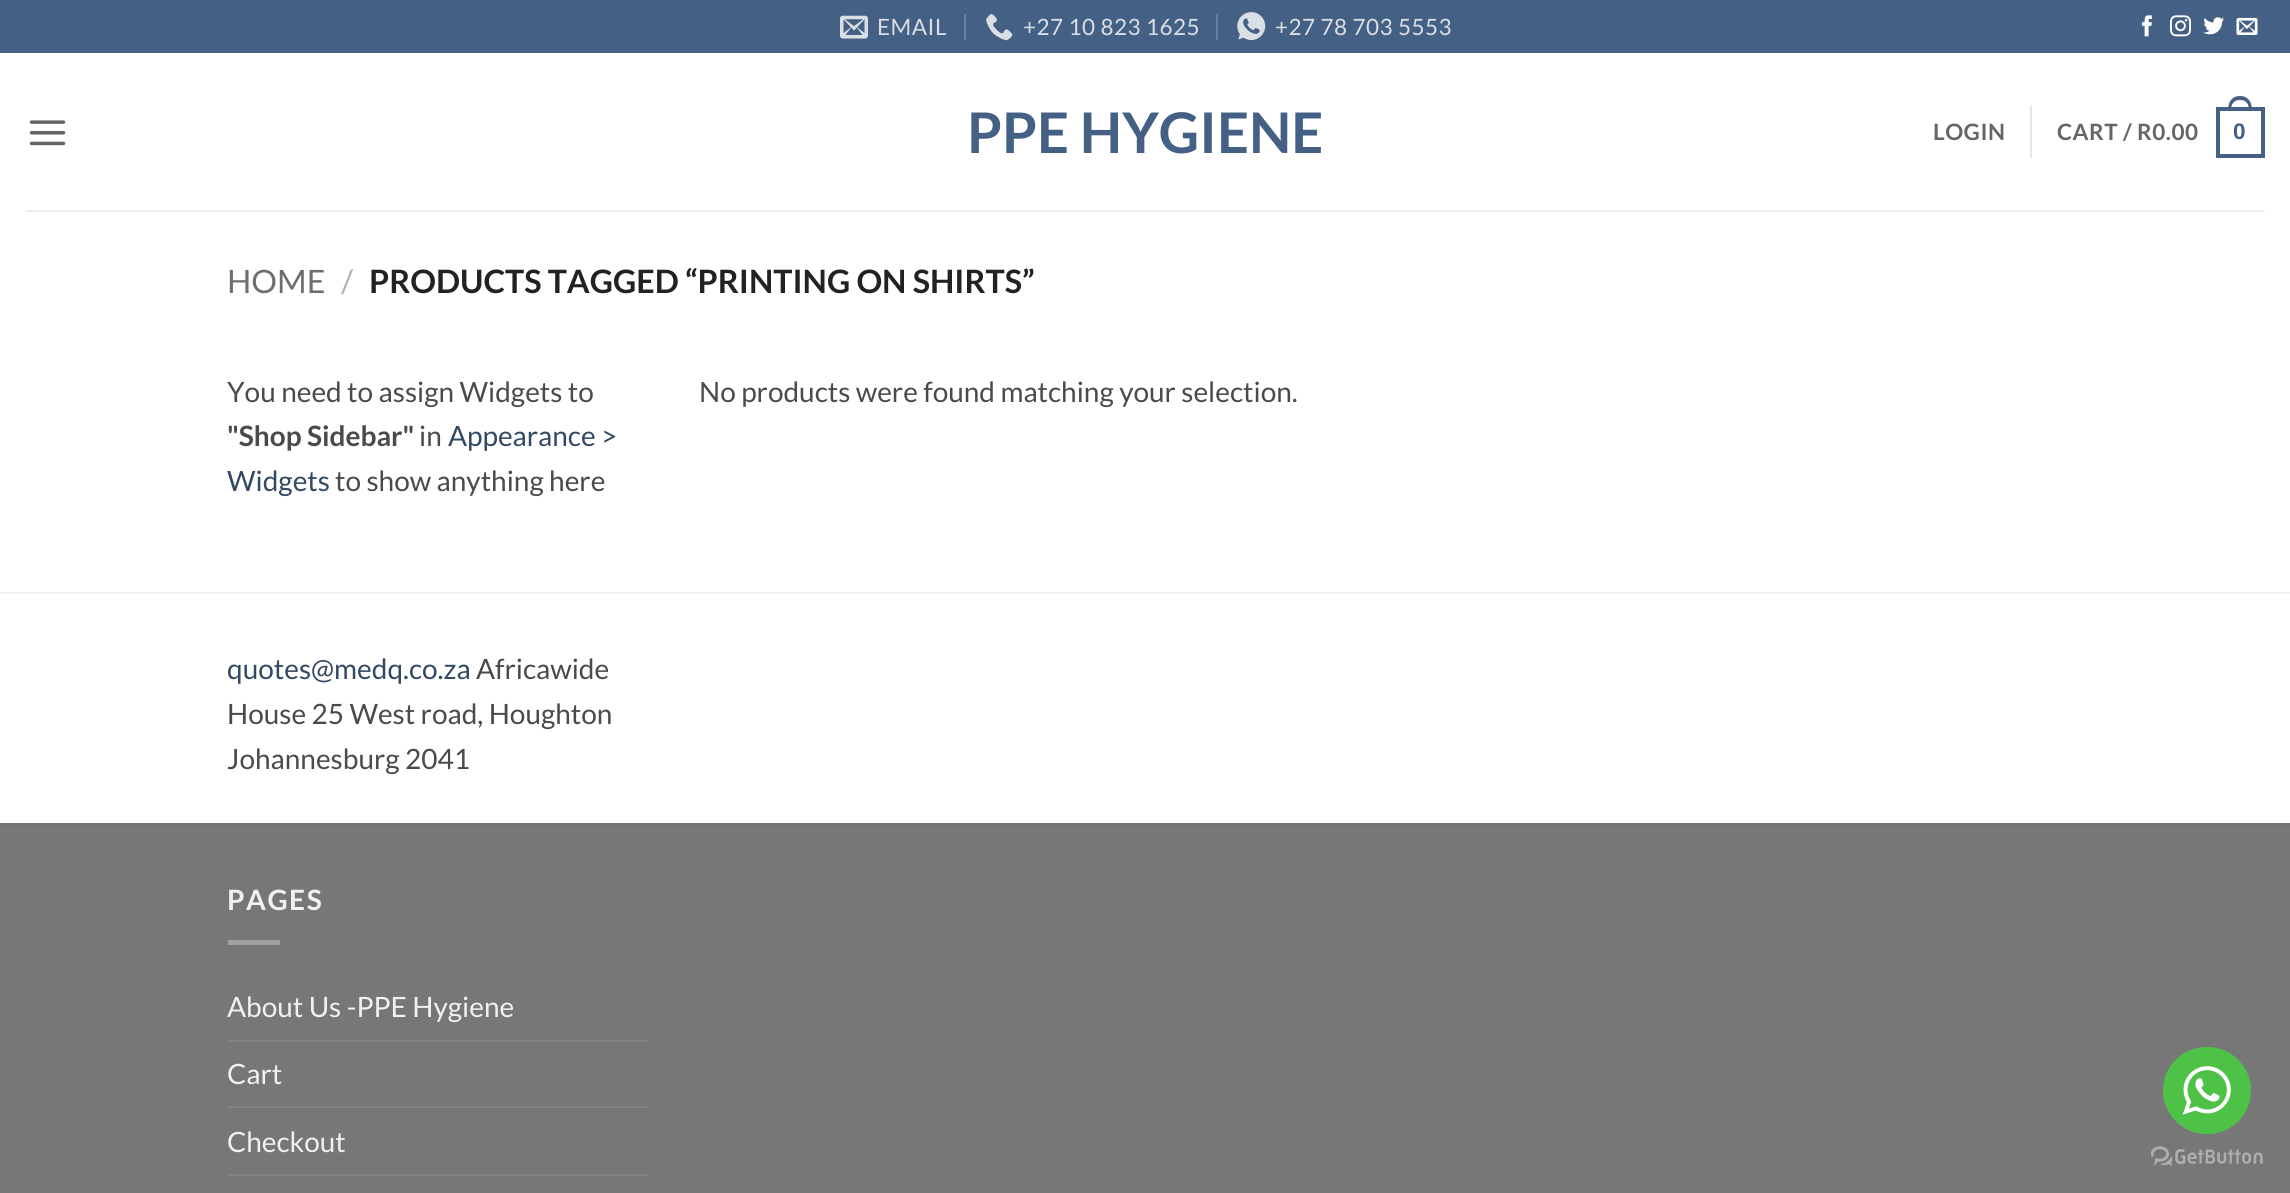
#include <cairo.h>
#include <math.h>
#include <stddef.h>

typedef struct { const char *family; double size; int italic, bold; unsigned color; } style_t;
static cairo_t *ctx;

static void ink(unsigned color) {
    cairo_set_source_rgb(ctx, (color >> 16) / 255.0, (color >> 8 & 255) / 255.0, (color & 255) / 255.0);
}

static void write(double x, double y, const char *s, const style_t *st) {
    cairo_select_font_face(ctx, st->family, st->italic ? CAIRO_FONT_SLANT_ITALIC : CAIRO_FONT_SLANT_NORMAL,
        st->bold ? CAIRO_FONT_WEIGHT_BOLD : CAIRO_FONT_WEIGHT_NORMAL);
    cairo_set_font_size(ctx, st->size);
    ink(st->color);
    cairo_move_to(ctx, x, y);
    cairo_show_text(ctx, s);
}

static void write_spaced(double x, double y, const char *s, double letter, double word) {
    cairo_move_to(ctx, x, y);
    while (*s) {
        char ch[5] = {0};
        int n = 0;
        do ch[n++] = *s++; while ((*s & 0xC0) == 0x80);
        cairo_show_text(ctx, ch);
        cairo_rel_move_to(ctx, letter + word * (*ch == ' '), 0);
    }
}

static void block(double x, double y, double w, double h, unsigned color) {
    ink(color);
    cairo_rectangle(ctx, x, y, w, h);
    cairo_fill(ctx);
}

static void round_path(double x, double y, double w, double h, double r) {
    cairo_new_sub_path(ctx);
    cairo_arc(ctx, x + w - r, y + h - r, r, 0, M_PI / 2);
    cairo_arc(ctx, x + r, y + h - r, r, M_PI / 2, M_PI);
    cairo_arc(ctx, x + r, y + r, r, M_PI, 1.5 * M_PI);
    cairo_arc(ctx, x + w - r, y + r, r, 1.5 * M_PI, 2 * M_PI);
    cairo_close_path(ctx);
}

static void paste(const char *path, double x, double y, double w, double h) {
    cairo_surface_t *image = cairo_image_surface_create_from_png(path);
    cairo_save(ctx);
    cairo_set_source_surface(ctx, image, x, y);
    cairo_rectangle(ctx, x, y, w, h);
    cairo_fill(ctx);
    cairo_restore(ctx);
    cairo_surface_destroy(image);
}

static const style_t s1 = {"Lato", 56, 0, 1, 0x446084};
static const style_t s2 = {"Lato", 32.2, 0, 0, 0x6e6e6e};
static const style_t s3 = {"Lato", 32.2, 0, 0, 0xb2b2b2};
static const style_t s4 = {"Lato", 32.2, 0, 1, 0x222222};
static const style_t s5 = {"Lato", 28, 0, 0, 0x4a4a4a};
static const style_t s6 = {"Lato", 28, 0, 1, 0x4a4a4a};
static const style_t s7 = {"Lato", 28, 0, 0, 0x334862};
static const style_t s8 = {"Lato", 28, 0, 0, 0xf1f1f1};

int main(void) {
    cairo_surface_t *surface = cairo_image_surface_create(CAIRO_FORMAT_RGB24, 2290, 1193);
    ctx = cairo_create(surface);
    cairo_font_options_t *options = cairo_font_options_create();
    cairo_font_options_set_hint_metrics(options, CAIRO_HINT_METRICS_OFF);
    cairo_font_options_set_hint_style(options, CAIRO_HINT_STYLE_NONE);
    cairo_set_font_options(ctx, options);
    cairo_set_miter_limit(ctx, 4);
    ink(0xffffff);
    cairo_paint(ctx);
    block(0, 0, 2290, 53, 0x446084);
    paste("pic1.png", 840, 15, 28, 24);
    cairo_select_font_face(ctx, "Lato", CAIRO_FONT_SLANT_NORMAL, CAIRO_FONT_WEIGHT_NORMAL);
    cairo_set_font_size(ctx, 22.5);
    ink(0xdadfe6);
    write_spaced(877, 35, "EMAIL", 0.5, 0);
    block(964, 14, 2, 26, 0x69809d);
    paste("pic2.png", 986, 14, 27, 27);
    ink(0xdadfe6);
    write_spaced(1023, 35, "+27 10 823 1625", 0.5, 0);
    block(1216, 14, 2, 26, 0x69809d);
    paste("pic3.png", 1237, 12, 29, 29);
    ink(0xdadfe6);
    write_spaced(1275, 35, "+27 78 703 5553", 0.5, 0);
    paste("pic4.png", 2142, 15, 10, 22);
    paste("pic5.png", 2170, 15, 21, 22);
    paste("pic6.png", 2203, 17, 22, 18);
    paste("pic7.png", 2236, 17, 22, 18);
    paste("pic8.png", 29, 120, 37, 26);
    write(967, 153, "PPE HYGIENE", &s1);
    cairo_set_font_size(ctx, 22.5);
    ink(0x656565);
    write_spaced(1933, 140, "LOGIN", 0.5, 0);
    block(2030, 105, 2, 53, 0xe6e6e6);
    ink(0x656565);
    write_spaced(2057, 140, "CART / R0.00", 0.5, 0);
    cairo_rectangle(ctx, 2218, 109, 45, 47);
    ink(0x446084);
    cairo_set_line_width(ctx, 4);
    cairo_stroke(ctx);
    cairo_set_fill_rule(ctx, CAIRO_FILL_RULE_EVEN_ODD);
    cairo_new_path(ctx);
    cairo_move_to(ctx, 2240, 96);
    cairo_curve_to(ctx, 2248.5, 96, 2252, 102.5, 2252, 110);
    cairo_line_to(ctx, 2228, 110);
    cairo_curve_to(ctx, 2228, 102.5, 2231.5, 96, 2240, 96);
    cairo_close_path(ctx);
    cairo_move_to(ctx, 2240, 100);
    cairo_curve_to(ctx, 2246.5, 100, 2249, 104.5, 2249, 110);
    cairo_line_to(ctx, 2231, 110);
    cairo_curve_to(ctx, 2231, 104.5, 2233.5, 100, 2240, 100);
    cairo_close_path(ctx);
    cairo_fill(ctx);
    cairo_select_font_face(ctx, "Liberation Sans", CAIRO_FONT_SLANT_NORMAL, CAIRO_FONT_WEIGHT_BOLD);
    write_spaced(2233, 139, "0", 0.5, 0);
    block(26, 210, 2239, 2, 0xededed);
    write(227, 293, "HOME", &s2);
    write(341, 293, "/", &s3);
    write(369, 293, "PRODUCTS TAGGED “PRINTING ON SHIRTS”", &s4);
    write(227, 402, "You need to assign Widgets to", &s5);
    write(227, 446, "\"Shop Sidebar\"", &s6);
    write(419, 446, "in", &s5);
    write(448, 446, "Appearance >", &s7);
    write(227, 491, "Widgets", &s7);
    write(335, 491, "to show anything here", &s5);
    write(699, 402, "No products were found matching your selection.", &s5);
    block(0, 592, 2290, 2, 0xf2f2f2);
    write(227, 679, "quotes@medq.co.za", &s7);
    write(476, 679, "Africawide", &s5);
    write(227, 724, "House 25 West road, Houghton", &s5);
    write(227, 769, "Johannesburg 2041", &s5);
    block(0, 825, 2290, 368, 0x777777);
    block(0, 823, 2290, 2, 0x717171);
    cairo_select_font_face(ctx, "Lato", CAIRO_FONT_SLANT_NORMAL, CAIRO_FONT_WEIGHT_BOLD);
    ink(0xf1f1f1);
    write_spaced(227, 910, "PAGES", 1.5, 0);
    block(228, 940, 52, 5, 0xa0a0a0);
    write(227, 1017, "About Us -PPE Hygiene", &s8);
    block(228, 1040, 420, 2, 0x828282);
    write(227, 1084, "Cart", &s8);
    block(228, 1106, 420, 2, 0x828282);
    write(227, 1152, "Checkout", &s8);
    block(228, 1174, 420, 2, 0x828282);
    ink(0x4dc247);
    round_path(2163, 1047, 88, 87, 43.5);
    cairo_fill(ctx);
    paste("pic9.png", 2182, 1066, 49, 49);
    paste("pic10.png", 2151, 1146, 112, 20);
    cairo_surface_write_to_png(surface, "screenshot.png");
    cairo_font_options_destroy(options);
    cairo_destroy(ctx);
    cairo_surface_destroy(surface);
    return 0;
}
